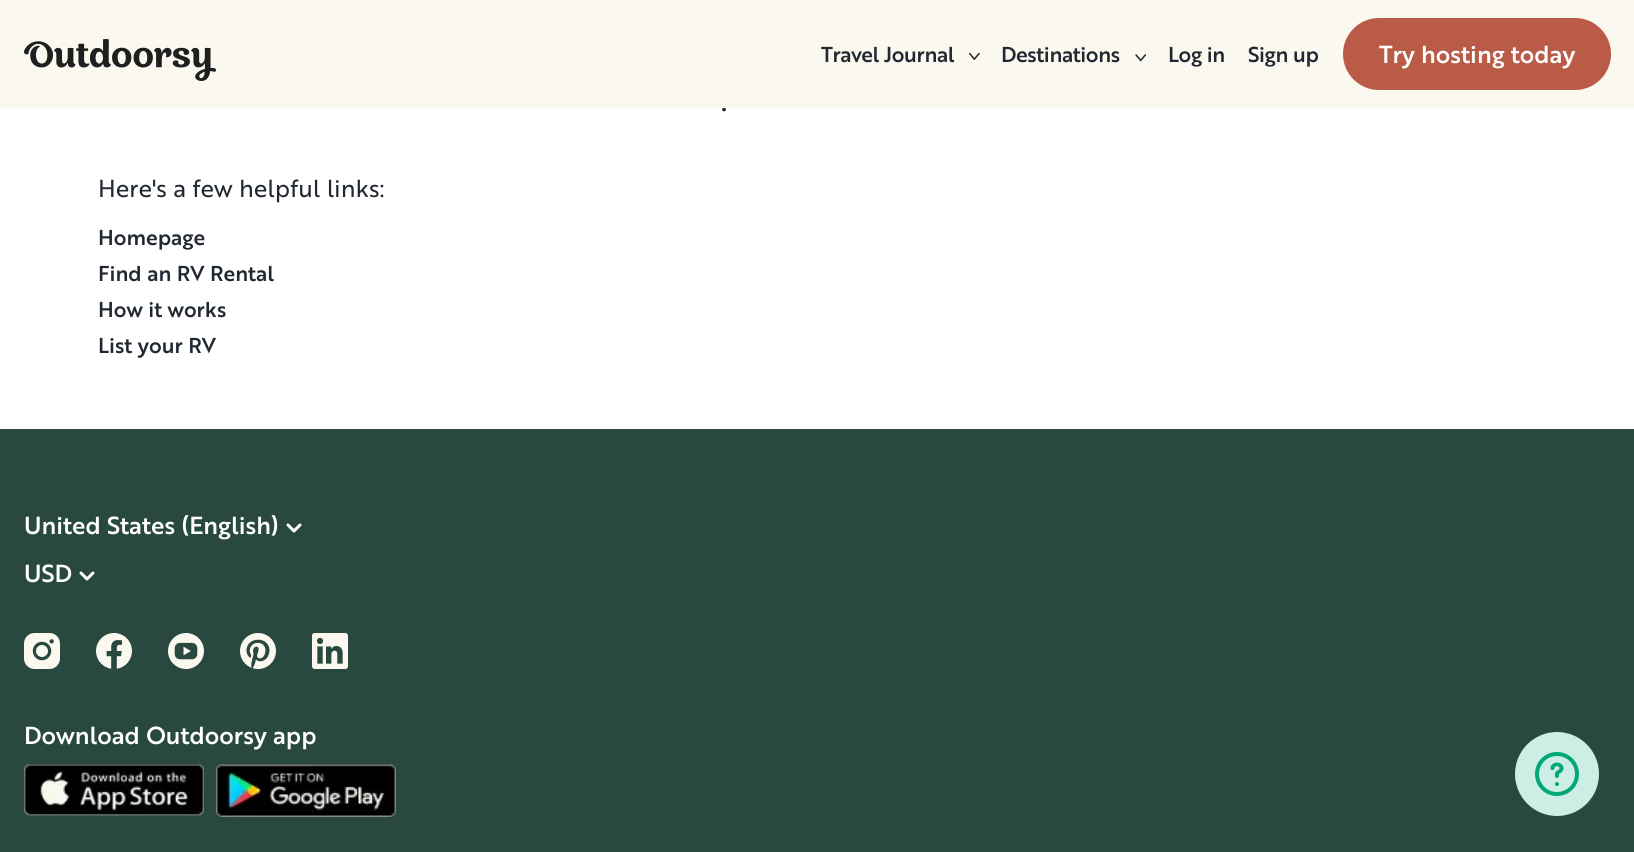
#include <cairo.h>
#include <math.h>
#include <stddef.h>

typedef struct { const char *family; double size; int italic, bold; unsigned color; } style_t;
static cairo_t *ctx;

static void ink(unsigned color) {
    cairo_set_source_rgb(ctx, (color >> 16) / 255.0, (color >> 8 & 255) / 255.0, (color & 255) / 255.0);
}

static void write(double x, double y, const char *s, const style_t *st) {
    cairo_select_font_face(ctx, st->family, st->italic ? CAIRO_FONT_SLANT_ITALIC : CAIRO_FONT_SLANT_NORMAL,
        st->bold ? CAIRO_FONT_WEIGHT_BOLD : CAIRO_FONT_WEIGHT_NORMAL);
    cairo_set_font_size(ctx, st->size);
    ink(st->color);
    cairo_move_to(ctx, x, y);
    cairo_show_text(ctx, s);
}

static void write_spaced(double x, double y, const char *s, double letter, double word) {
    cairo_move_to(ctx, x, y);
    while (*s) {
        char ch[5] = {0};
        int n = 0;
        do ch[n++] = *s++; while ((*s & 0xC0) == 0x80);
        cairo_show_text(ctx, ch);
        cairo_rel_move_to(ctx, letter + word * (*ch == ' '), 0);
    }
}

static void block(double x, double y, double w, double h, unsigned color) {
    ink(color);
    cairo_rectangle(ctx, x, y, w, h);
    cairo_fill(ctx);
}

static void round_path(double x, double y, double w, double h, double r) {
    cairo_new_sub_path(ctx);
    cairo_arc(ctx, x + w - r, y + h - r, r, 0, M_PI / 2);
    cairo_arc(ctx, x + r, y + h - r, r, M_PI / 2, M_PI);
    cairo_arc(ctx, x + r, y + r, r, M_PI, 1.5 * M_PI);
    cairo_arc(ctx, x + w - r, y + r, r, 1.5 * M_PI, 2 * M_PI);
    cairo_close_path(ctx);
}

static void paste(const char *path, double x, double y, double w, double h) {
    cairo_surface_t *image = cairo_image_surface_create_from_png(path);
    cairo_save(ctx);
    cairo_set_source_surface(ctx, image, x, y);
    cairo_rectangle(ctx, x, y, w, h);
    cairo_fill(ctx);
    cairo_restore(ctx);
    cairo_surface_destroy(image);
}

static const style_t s1 = {"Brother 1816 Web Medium", 27, 0, 0, 0x212831};
static const style_t s2 = {"Brother 1816 Web Medium", 24, 0, 0, 0xffffff};
static const style_t s3 = {"Brother 1816 Web", 24, 0, 0, 0x212831};
static const style_t s4 = {"Brother 1816 Web Medium", 21, 0, 0, 0x212831};

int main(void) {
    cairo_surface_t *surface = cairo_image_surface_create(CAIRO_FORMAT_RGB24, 1634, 852);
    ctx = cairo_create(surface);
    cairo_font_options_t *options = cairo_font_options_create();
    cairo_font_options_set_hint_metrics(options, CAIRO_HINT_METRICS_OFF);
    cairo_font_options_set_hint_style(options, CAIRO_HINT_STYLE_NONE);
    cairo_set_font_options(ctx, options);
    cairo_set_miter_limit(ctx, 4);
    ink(0xffffff);
    cairo_paint(ctx);
    write(721, 111, ".", &s1);
    block(0, 0, 1634, 108, 0xfbf8ef);
    paste("pic1.png", 24, 39, 192, 42);
    cairo_set_font_size(ctx, 21);
    ink(0x212831);
    write_spaced(821, 62, "Travel Journal", -0.4, 0);
    paste("pic2.png", 969, 52, 11, 8);
    write_spaced(1001, 62, "Destinations", -0.4, 0);
    paste("pic3.png", 1135, 54, 11, 8);
    write_spaced(1168, 62, "Log in", -0.4, 0);
    write_spaced(1248, 62, "Sign up", -0.4, 0);
    ink(0xb95b46);
    round_path(1344.5, 19.5, 265, 69, 34.5);
    cairo_fill_preserve(ctx);
    cairo_set_line_width(ctx, 3);
    cairo_stroke(ctx);
    write(1379, 63, "Try hosting today", &s2);
    write(98, 197, "Here's a few helpful links:", &s3);
    write(98, 245, "Homepage", &s4);
    write(98, 281, "Find an RV Rental", &s4);
    write(98, 317, "How it works", &s4);
    write(98, 353, "List your RV", &s4);
    block(0, 429, 1634, 423, 0x284840);
    write(24, 534, "United States (English)", &s2);
    paste("pic4.png", 286, 523, 16, 10);
    write(24, 582, "USD", &s2);
    paste("pic4.png", 79, 571, 16, 10);
    paste("pic5.png", 24, 633, 36, 36);
    paste("pic6.png", 96, 633, 36, 36);
    paste("pic7.png", 168, 633, 36, 36);
    paste("pic8.png", 240, 633, 36, 36);
    paste("pic9.png", 312, 633, 36, 36);
    write(24, 744, "Download Outdoorsy app", &s2);
    paste("pic10.png", 24, 764, 180, 52);
    paste("pic11.png", 216, 764, 180, 53);
    ink(0xcdeee4);
    cairo_arc(ctx, 1557, 774, 42, 0, 2 * M_PI);
    cairo_fill(ctx);
    paste("pic12.png", 1535, 752, 44, 44);
    cairo_surface_write_to_png(surface, "screenshot.png");
    cairo_font_options_destroy(options);
    cairo_destroy(ctx);
    cairo_surface_destroy(surface);
    return 0;
}
